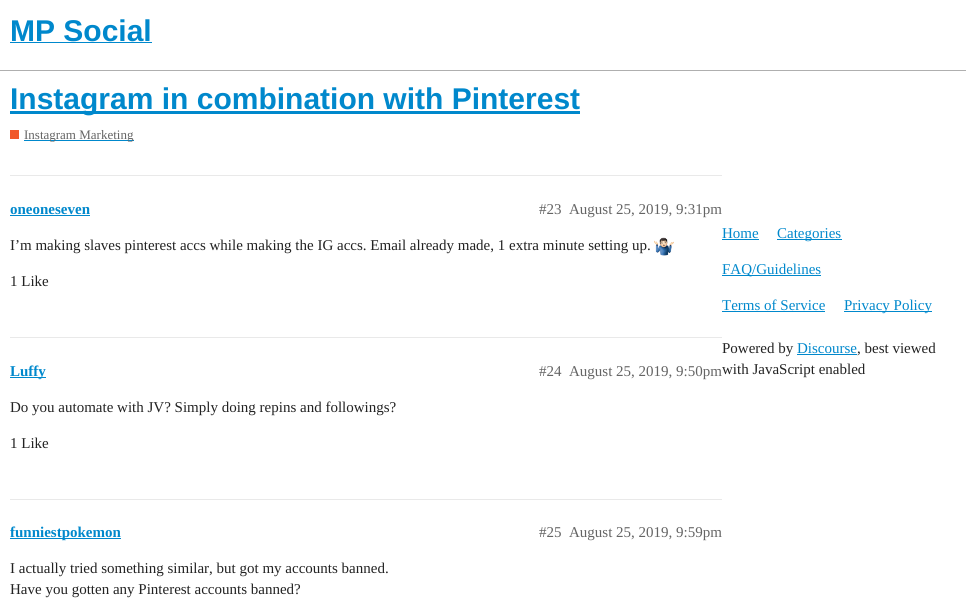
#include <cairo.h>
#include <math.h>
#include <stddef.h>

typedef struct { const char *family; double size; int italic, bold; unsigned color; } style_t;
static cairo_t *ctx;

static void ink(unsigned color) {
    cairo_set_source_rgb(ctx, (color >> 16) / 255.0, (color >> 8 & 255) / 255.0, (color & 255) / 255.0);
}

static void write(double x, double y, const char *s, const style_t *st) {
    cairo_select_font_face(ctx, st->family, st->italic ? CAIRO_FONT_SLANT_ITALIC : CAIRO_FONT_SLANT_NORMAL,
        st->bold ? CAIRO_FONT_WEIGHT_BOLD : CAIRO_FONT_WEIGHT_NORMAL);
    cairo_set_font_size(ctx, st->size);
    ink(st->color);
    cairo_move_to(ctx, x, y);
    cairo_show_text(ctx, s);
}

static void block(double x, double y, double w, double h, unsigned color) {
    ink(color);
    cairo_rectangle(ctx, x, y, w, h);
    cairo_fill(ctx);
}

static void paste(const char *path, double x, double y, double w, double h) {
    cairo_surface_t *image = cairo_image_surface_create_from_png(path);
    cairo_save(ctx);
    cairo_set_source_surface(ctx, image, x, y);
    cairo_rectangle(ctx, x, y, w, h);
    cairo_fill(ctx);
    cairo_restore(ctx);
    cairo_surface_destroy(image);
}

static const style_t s1 = {"Liberation Sans", 30, 0, 1, 0x0088cc};
static const style_t s2 = {"Liberation Serif", 13, 0, 0, 0x646464};
static const style_t s3 = {"Liberation Serif", 15, 0, 1, 0x0088cc};
static const style_t s4 = {"Liberation Serif", 15, 0, 0, 0x646464};
static const style_t s5 = {"Liberation Serif", 15, 0, 0, 0x222222};
static const style_t s6 = {"Liberation Serif", 15, 0, 0, 0x0088cc};

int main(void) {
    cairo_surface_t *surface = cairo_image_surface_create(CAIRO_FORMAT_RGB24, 966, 607);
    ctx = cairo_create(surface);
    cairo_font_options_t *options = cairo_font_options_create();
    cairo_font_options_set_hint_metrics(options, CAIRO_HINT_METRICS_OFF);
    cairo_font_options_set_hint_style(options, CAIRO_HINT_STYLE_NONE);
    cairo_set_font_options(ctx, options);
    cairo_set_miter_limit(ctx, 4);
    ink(0xffffff);
    cairo_paint(ctx);
    block(0, 70, 966, 1, 0xafafaf);
    write(10, 41, "MP Social", &s1);
    block(10, 42, 142, 1, 0x0088cc);
    block(10, 111, 570, 3, 0x0088cc);
    write(10, 109, "Instagram in combination with Pinterest", &s1);
    block(10, 130, 9, 9, 0xf1592a);
    block(24, 140, 110, 1, 0x0088cc);
    write(24, 139, "Instagram Marketing", &s2);
    block(10, 175, 712, 1, 0xe9e9e9);
    write(10, 214, "oneoneseven", &s3);
    block(10, 215, 80, 1, 0x0088cc);
    write(539, 214, "#23", &s4);
    write(569, 214, "August 25, 2019, 9:31pm", &s4);
    write(10, 250, "I’m making slaves pinterest accs while making the IG accs. Email already made, 1 extra minute setting up.", &s5);
    paste("pic1.png", 654, 237, 20, 19);
    write(10, 286, "1 Like", &s5);
    block(10, 337, 712, 1, 0xe9e9e9);
    block(10, 377, 36, 1, 0x0088cc);
    write(10, 376, "Luffy", &s3);
    write(539, 376, "#24", &s4);
    write(569, 376, "August 25, 2019, 9:50pm", &s4);
    write(10, 412, "Do you automate with JV? Simply doing repins and followings?", &s5);
    write(10, 448, "1 Like", &s5);
    block(10, 499, 712, 1, 0xe9e9e9);
    block(10, 538, 111, 1, 0x0088cc);
    write(10, 537, "funniestpokemon", &s3);
    write(539, 537, "#25", &s4);
    write(569, 537, "August 25, 2019, 9:59pm", &s4);
    write(10, 573, "I actually tried something similar, but got my accounts banned.", &s5);
    write(10, 594, "Have you gotten any Pinterest accounts banned?", &s5);
    write(722, 238, "Home", &s6);
    block(722, 239, 37, 1, 0x0088cc);
    block(777, 239, 65, 1, 0x0088cc);
    write(777, 238, "Categories", &s6);
    block(722, 275, 99, 1, 0x0088cc);
    write(722, 274, "FAQ/Guidelines", &s6);
    write(722, 310, "Terms of Service", &s6);
    block(722, 311, 103, 1, 0x0088cc);
    block(844, 311, 88, 1, 0x0088cc);
    write(844, 310, "Privacy Policy", &s6);
    write(722, 353, "Powered by", &s5);
    write(797, 353, "Discourse", &s6);
    block(797, 354, 60, 1, 0x0088cc);
    write(857, 353, ", best viewed", &s5);
    write(722, 374, "with JavaScript enabled", &s5);
    cairo_surface_write_to_png(surface, "screenshot.png");
    cairo_font_options_destroy(options);
    cairo_destroy(ctx);
    cairo_surface_destroy(surface);
    return 0;
}
